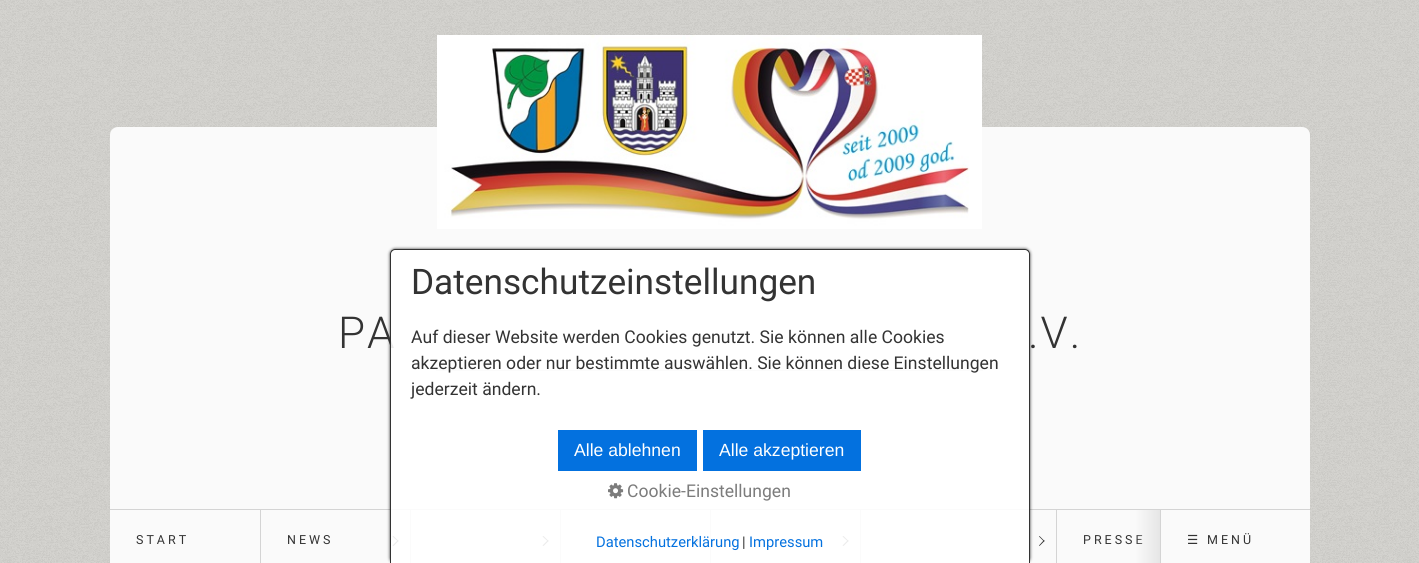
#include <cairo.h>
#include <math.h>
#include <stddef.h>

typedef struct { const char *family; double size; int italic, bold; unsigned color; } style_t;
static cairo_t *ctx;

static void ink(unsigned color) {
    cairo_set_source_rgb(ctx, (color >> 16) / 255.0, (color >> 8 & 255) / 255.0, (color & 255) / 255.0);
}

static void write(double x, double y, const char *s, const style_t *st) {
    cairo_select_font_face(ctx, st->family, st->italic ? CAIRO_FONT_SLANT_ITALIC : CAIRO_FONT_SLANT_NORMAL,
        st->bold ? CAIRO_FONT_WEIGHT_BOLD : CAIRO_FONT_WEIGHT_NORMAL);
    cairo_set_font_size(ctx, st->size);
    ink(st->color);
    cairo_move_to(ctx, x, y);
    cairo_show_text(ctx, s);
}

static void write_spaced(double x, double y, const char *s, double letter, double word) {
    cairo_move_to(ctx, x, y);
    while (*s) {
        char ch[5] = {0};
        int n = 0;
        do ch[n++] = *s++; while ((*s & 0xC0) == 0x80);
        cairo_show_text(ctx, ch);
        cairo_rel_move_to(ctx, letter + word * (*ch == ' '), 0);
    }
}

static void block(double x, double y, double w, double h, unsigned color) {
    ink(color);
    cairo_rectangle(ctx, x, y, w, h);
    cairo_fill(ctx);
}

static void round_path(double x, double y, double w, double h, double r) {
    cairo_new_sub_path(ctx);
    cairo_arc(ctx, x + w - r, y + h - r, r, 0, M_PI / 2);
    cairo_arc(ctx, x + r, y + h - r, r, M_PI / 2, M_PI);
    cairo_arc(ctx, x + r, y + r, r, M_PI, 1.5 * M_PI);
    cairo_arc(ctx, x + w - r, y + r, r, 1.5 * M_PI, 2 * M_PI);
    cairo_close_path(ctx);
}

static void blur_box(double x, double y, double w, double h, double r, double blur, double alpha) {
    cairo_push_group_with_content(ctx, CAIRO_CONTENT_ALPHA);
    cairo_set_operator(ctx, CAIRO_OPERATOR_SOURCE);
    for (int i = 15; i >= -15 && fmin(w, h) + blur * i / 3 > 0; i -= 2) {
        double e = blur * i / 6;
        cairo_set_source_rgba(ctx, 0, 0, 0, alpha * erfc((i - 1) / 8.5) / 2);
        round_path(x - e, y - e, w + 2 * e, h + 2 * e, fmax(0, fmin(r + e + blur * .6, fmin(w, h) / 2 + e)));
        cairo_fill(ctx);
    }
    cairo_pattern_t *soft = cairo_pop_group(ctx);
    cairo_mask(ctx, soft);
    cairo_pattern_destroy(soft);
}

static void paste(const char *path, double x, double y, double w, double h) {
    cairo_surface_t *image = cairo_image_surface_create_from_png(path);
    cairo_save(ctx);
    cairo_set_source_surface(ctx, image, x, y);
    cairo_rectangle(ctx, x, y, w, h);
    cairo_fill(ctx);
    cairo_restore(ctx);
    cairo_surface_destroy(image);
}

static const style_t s1 = {"Roboto", 35.25, 0, 0, 0x333333};
static const style_t s2 = {"Roboto", 17.6, 0, 0, 0x333333};
static const style_t s3 = {"Liberation Sans", 17.6, 0, 0, 0xffffff};
static const style_t s4 = {"Roboto", 17.6, 0, 0, 0x7c7c7c};
static const style_t s5 = {"Roboto", 14.75, 0, 0, 0x0371df};
static const style_t s6 = {"Roboto", 14.75, 0, 0, 0x333333};

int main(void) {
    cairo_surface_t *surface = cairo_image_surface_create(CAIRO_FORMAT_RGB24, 1419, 563);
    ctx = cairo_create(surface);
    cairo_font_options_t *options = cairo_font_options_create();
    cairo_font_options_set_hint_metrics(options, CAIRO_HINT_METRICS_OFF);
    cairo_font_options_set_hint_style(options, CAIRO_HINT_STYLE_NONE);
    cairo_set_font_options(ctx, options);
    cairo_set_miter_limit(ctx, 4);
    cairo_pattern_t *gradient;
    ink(0xffffff);
    cairo_paint(ctx);
    paste("pic1.png", 0, 0, 1419, 563);
    ink(0xfafafa);
    cairo_new_path(ctx);
    cairo_move_to(ctx, 118, 127);
    cairo_line_to(ctx, 1302, 127);
    cairo_curve_to(ctx, 1306.5, 127, 1310, 130.5, 1310, 135);
    cairo_line_to(ctx, 1310, 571);
    cairo_line_to(ctx, 110, 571);
    cairo_line_to(ctx, 110, 135);
    cairo_curve_to(ctx, 110, 130.5, 113.5, 127, 118, 127);
    cairo_close_path(ctx);
    cairo_fill(ctx);
    paste("pic2.png", 437, 35, 545, 194);
    block(436, 370, 547, 1, 0xd4d4d4);
    block(110, 509, 1200, 1, 0xd4d4d4);
    ink(0x333333);
    cairo_new_path(ctx);
    cairo_move_to(ctx, 393.5, 536);
    cairo_line_to(ctx, 398.5, 541);
    cairo_line_to(ctx, 398, 541.5);
    cairo_line_to(ctx, 392.5, 536.5);
    cairo_close_path(ctx);
    cairo_fill(ctx);
    cairo_new_path(ctx);
    cairo_move_to(ctx, 398, 540);
    cairo_line_to(ctx, 398.5, 541);
    cairo_line_to(ctx, 393.5, 546);
    cairo_line_to(ctx, 392.5, 545.5);
    cairo_close_path(ctx);
    cairo_fill(ctx);
    block(410, 510, 1, 53, 0xd4d4d4);
    ink(0x333333);
    cairo_new_path(ctx);
    cairo_move_to(ctx, 543.5, 536);
    cairo_line_to(ctx, 548.5, 541);
    cairo_line_to(ctx, 548, 541.5);
    cairo_line_to(ctx, 542.5, 536.5);
    cairo_close_path(ctx);
    cairo_fill(ctx);
    cairo_new_path(ctx);
    cairo_move_to(ctx, 548, 540);
    cairo_line_to(ctx, 548.5, 541);
    cairo_line_to(ctx, 543.5, 546);
    cairo_line_to(ctx, 542.5, 545.5);
    cairo_close_path(ctx);
    cairo_fill(ctx);
    block(560, 510, 1, 53, 0xd4d4d4);
    ink(0x333333);
    cairo_new_path(ctx);
    cairo_move_to(ctx, 693.5, 536);
    cairo_line_to(ctx, 698.5, 541);
    cairo_line_to(ctx, 698, 541.5);
    cairo_line_to(ctx, 692.5, 536.5);
    cairo_close_path(ctx);
    cairo_fill(ctx);
    cairo_new_path(ctx);
    cairo_move_to(ctx, 698, 540);
    cairo_line_to(ctx, 698.5, 541);
    cairo_line_to(ctx, 693.5, 546);
    cairo_line_to(ctx, 692.5, 545.5);
    cairo_close_path(ctx);
    cairo_fill(ctx);
    block(710, 510, 1, 53, 0xd4d4d4);
    ink(0x333333);
    cairo_new_path(ctx);
    cairo_move_to(ctx, 843.5, 536);
    cairo_line_to(ctx, 848.5, 541);
    cairo_line_to(ctx, 848, 541.5);
    cairo_line_to(ctx, 842.5, 536.5);
    cairo_close_path(ctx);
    cairo_fill(ctx);
    cairo_new_path(ctx);
    cairo_move_to(ctx, 848, 540);
    cairo_line_to(ctx, 848.5, 541);
    cairo_line_to(ctx, 843.5, 546);
    cairo_line_to(ctx, 842.5, 545.5);
    cairo_close_path(ctx);
    cairo_fill(ctx);
    block(860, 510, 1, 53, 0xd4d4d4);
    cairo_save(ctx);
    cairo_set_fill_rule(ctx, CAIRO_FILL_RULE_EVEN_ODD);
    cairo_new_path(ctx);
    cairo_move_to(ctx, 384, 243);
    cairo_line_to(ctx, 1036, 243);
    cairo_line_to(ctx, 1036, 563);
    cairo_line_to(ctx, 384, 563);
    cairo_close_path(ctx);
    cairo_move_to(ctx, 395, 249);
    cairo_line_to(ctx, 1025, 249);
    cairo_curve_to(ctx, 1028, 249, 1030, 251, 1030, 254);
    cairo_line_to(ctx, 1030, 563);
    cairo_line_to(ctx, 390, 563);
    cairo_line_to(ctx, 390, 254);
    cairo_curve_to(ctx, 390, 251, 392, 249, 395, 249);
    cairo_close_path(ctx);
    cairo_clip(ctx);
    ink(0x000000);
    blur_box(390, 249, 640, 314, 5, 1.5, 0.8);
    cairo_restore(ctx);
    cairo_select_font_face(ctx, "Roboto Light", CAIRO_FONT_SLANT_NORMAL, CAIRO_FONT_WEIGHT_NORMAL);
    cairo_set_font_size(ctx, 44);
    ink(0x333333);
    write_spaced(338, 348, "PA", 2, 0);
    cairo_set_source_rgba(ctx, 1, 1, 1, 0.9);
    cairo_new_path(ctx);
    cairo_move_to(ctx, 395, 249);
    cairo_line_to(ctx, 1025, 249);
    cairo_curve_to(ctx, 1028, 249, 1030, 251, 1030, 254);
    cairo_line_to(ctx, 1030, 563);
    cairo_line_to(ctx, 390, 563);
    cairo_line_to(ctx, 390, 254);
    cairo_curve_to(ctx, 390, 251, 392, 249, 395, 249);
    cairo_close_path(ctx);
    cairo_fill(ctx);
    ink(0x333333);
    cairo_set_fill_rule(ctx, CAIRO_FILL_RULE_EVEN_ODD);
    cairo_new_path(ctx);
    cairo_move_to(ctx, 395, 249);
    cairo_line_to(ctx, 1025, 249);
    cairo_curve_to(ctx, 1028, 249, 1030, 251, 1030, 254);
    cairo_line_to(ctx, 1030, 563);
    cairo_line_to(ctx, 390, 563);
    cairo_line_to(ctx, 390, 254);
    cairo_curve_to(ctx, 390, 251, 392, 249, 395, 249);
    cairo_close_path(ctx);
    cairo_move_to(ctx, 395, 250);
    cairo_line_to(ctx, 1025, 250);
    cairo_curve_to(ctx, 1027, 250, 1029, 252, 1029, 254);
    cairo_line_to(ctx, 1029, 563);
    cairo_line_to(ctx, 391, 563);
    cairo_line_to(ctx, 391, 254);
    cairo_curve_to(ctx, 391, 252, 393, 250, 395, 250);
    cairo_close_path(ctx);
    cairo_fill(ctx);
    write(411, 294, "Datenschutzeinstellungen", &s1);
    write(411, 343, "Auf dieser Website werden Cookies genutzt. Sie können alle Cookies", &s2);
    write(411, 369, "akzeptieren oder nur bestimmte auswählen. Sie können diese Einstellungen", &s2);
    write(411, 395, "jederzeit ändern.", &s2);
    block(558, 430, 139, 41, 0x0371df);
    write(574, 456, "Alle ablehnen", &s3);
    block(703, 430, 158, 41, 0x0371df);
    write(719, 456, "Alle akzeptieren", &s3);
    paste("pic3.png", 608, 483, 16, 16);
    write(627, 497, "Cookie-Einstellungen", &s4);
    write(596, 547, "Datenschutzerklärung", &s5);
    write(742, 547, "|", &s6);
    write(749, 547, "Impressum", &s5);
    cairo_select_font_face(ctx, "Roboto Light", CAIRO_FONT_SLANT_NORMAL, CAIRO_FONT_WEIGHT_NORMAL);
    cairo_set_font_size(ctx, 44);
    ink(0x333333);
    write_spaced(1028, 348, ".V.", 2, 0);
    cairo_select_font_face(ctx, "Roboto", CAIRO_FONT_SLANT_NORMAL, CAIRO_FONT_WEIGHT_NORMAL);
    cairo_set_font_size(ctx, 12.5);
    write_spaced(136, 544, "START", 3, 0);
    block(260, 510, 1, 53, 0xd4d4d4);
    ink(0x333333);
    write_spaced(287, 544, "NEWS", 3, 0);
    cairo_set_fill_rule(ctx, CAIRO_FILL_RULE_WINDING);
    cairo_new_path(ctx);
    cairo_move_to(ctx, 1039.5, 536);
    cairo_line_to(ctx, 1044.5, 541);
    cairo_line_to(ctx, 1044, 541.5);
    cairo_line_to(ctx, 1039, 536.5);
    cairo_close_path(ctx);
    cairo_fill(ctx);
    cairo_new_path(ctx);
    cairo_move_to(ctx, 1044, 540);
    cairo_line_to(ctx, 1044.5, 541);
    cairo_line_to(ctx, 1039.5, 546);
    cairo_line_to(ctx, 1039, 545.5);
    cairo_close_path(ctx);
    cairo_fill(ctx);
    block(1056, 510, 1, 53, 0xd4d4d4);
    ink(0x333333);
    write_spaced(1083, 544, "PRESSE", 3, 0);
    block(1160, 510, 1, 53, 0xd4d4d4);
    gradient = cairo_pattern_create_linear(1135, 541, 1160, 541);
    cairo_pattern_add_color_stop_rgba(gradient, 0, 0.902, 0.902, 0.902, 0);
    cairo_pattern_add_color_stop_rgba(gradient, 1, 0.902, 0.902, 0.902, 1);
    cairo_set_source(ctx, gradient);
    cairo_pattern_destroy(gradient);
    cairo_rectangle(ctx, 1136, 510, 24, 53);
    cairo_fill(ctx);
    cairo_select_font_face(ctx, "DejaVu Sans", CAIRO_FONT_SLANT_NORMAL, CAIRO_FONT_WEIGHT_NORMAL);
    ink(0x333333);
    write_spaced(1187, 544, "☰", 3, 0);
    cairo_select_font_face(ctx, "Roboto", CAIRO_FONT_SLANT_NORMAL, CAIRO_FONT_WEIGHT_NORMAL);
    write_spaced(1207, 544, "MENÜ", 3, 0);
    cairo_surface_write_to_png(surface, "screenshot.png");
    cairo_font_options_destroy(options);
    cairo_destroy(ctx);
    cairo_surface_destroy(surface);
    return 0;
}
